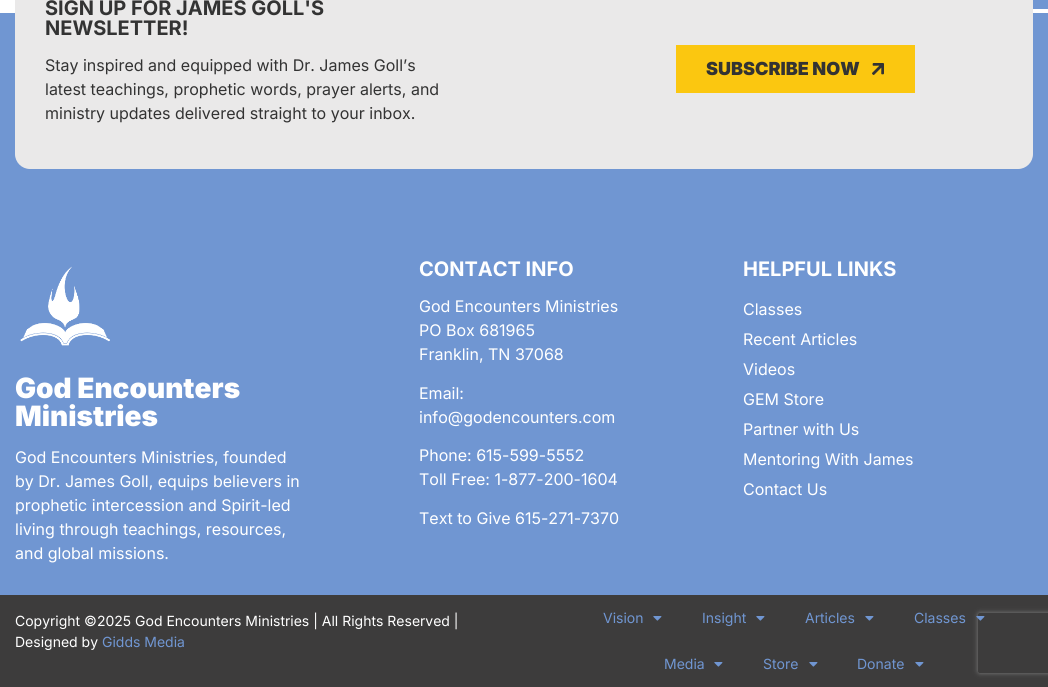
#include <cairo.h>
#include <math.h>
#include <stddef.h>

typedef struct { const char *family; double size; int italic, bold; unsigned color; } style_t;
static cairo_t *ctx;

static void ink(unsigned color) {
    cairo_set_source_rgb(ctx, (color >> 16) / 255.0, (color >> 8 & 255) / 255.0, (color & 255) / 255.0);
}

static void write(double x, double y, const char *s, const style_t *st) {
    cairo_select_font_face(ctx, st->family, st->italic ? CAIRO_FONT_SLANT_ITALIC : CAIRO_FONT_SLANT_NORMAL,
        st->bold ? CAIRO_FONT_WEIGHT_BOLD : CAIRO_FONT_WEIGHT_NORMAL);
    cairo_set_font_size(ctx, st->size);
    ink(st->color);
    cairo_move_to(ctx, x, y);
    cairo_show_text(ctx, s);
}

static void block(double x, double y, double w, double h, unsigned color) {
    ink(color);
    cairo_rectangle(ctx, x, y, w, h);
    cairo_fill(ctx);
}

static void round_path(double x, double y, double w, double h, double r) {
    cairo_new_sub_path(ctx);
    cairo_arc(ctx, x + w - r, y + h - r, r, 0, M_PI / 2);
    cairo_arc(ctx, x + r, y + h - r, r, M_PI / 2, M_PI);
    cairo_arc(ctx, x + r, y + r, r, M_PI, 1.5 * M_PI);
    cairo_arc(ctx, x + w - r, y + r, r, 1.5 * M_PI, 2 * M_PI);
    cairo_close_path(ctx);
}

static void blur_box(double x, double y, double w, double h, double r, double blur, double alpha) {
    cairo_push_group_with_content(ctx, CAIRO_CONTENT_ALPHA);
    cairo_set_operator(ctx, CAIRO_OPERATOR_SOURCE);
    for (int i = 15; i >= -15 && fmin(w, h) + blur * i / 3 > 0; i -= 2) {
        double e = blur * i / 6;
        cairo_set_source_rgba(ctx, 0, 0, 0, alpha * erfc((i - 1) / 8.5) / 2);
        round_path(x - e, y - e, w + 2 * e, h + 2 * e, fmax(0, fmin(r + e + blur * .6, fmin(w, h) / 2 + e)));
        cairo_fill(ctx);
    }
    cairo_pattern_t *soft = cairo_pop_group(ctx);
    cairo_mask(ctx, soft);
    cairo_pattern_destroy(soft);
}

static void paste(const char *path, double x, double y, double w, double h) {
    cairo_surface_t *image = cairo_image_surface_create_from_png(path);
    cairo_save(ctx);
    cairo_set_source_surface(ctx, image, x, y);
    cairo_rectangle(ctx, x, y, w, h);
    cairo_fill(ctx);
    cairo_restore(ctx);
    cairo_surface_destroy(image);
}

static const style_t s1 = {"Inter", 20, 0, 1, 0x333333};
static const style_t s2 = {"Inter", 16, 0, 0, 0x333333};
static const style_t s3 = {"Inter Black", 18, 0, 0, 0x333333};
static const style_t s4 = {"Inter Black", 28, 0, 0, 0xffffff};
static const style_t s5 = {"Inter", 16, 0, 0, 0xffffff};
static const style_t s6 = {"Inter", 20, 0, 1, 0xffffff};
static const style_t s7 = {"Inter", 14, 0, 0, 0xffffff};
static const style_t s8 = {"Inter", 14, 0, 0, 0x7096d2};

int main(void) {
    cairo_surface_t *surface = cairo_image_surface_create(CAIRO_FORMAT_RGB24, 1048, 687);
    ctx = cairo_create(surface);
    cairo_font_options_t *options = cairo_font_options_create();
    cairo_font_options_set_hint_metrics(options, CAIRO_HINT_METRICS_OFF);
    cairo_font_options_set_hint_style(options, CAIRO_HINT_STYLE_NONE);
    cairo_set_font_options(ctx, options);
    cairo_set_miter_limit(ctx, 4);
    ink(0xffffff);
    cairo_paint(ctx);
    block(0, 13, 1048, 582, 0x7096d2);
    ink(0xeae9e9);
    round_path(15, -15, 1018, 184, 15);
    cairo_fill(ctx);
    write(45, 15, "SIGN UP FOR JAMES GOLL'S", &s1);
    write(45, 35, "NEWSLETTER!", &s1);
    write(45, 71, "Stay inspired and equipped with Dr. James Goll’s", &s2);
    write(45, 95, "latest teachings, prophetic words, prayer alerts, and", &s2);
    write(45, 119, "ministry updates delivered straight to your inbox.", &s2);
    block(676, 45, 239, 48, 0xfbc710);
    write(706, 75, "SUBSCRIBE NOW", &s3);
    paste("pic1.png", 872, 63, 12, 12);
    block(1033, 0, 15, 9, 0x7096d2);
    paste("pic2.png", 20, 266, 90, 80);
    write(15, 398, "God Encounters", &s4);
    write(15, 426, "Ministries", &s4);
    write(15, 463, "God Encounters Ministries, founded", &s5);
    write(15, 487, "by Dr. James Goll, equips believers in", &s5);
    write(15, 511, "prophetic intercession and Spirit-led", &s5);
    write(15, 535, "living through teachings, resources,", &s5);
    write(15, 559, "and global missions.", &s5);
    write(419, 276, "CONTACT INFO", &s6);
    write(419, 312, "God Encounters Ministries", &s5);
    write(419, 336, "PO Box 681965", &s5);
    write(419, 360, "Franklin, TN 37068", &s5);
    write(419, 399, "Email:", &s5);
    write(419, 423, "info@godencounters.com", &s5);
    write(419, 461, "Phone: 615-599-5552", &s5);
    write(419, 485, "Toll Free: 1-877-200-1604", &s5);
    write(419, 524, "Text to Give 615-271-7370", &s5);
    write(743, 276, "HELPFUL LINKS", &s6);
    write(743, 315, "Classes", &s5);
    write(743, 345, "Recent Articles", &s5);
    write(743, 375, "Videos", &s5);
    write(743, 405, "GEM Store", &s5);
    write(743, 435, "Partner with Us", &s5);
    write(743, 465, "Mentoring With James", &s5);
    write(743, 495, "Contact Us", &s5);
    block(0, 595, 1048, 92, 0x3d3c3c);
    write(15, 626, "Copyright ©2025 God Encounters Ministries | All Rights Reserved |", &s7);
    write(15, 647, "Designed by", &s7);
    write(102, 647, "Gidds Media", &s8);
    write(603, 623, "Vision", &s8);
    paste("pic3.png", 653, 616, 9, 5);
    write(702, 623, "Insight", &s8);
    paste("pic3.png", 756, 616, 9, 5);
    write(805, 623, "Articles", &s8);
    paste("pic3.png", 865, 616, 9, 5);
    write(914, 623, "Classes", &s8);
    cairo_save(ctx);
    cairo_set_fill_rule(ctx, CAIRO_FILL_RULE_EVEN_ODD);
    cairo_new_path(ctx);
    cairo_move_to(ctx, 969, 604);
    cairo_line_to(ctx, 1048, 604);
    cairo_line_to(ctx, 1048, 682);
    cairo_line_to(ctx, 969, 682);
    cairo_close_path(ctx);
    cairo_move_to(ctx, 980, 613);
    cairo_line_to(ctx, 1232, 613);
    cairo_curve_to(ctx, 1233, 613, 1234, 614, 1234, 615);
    cairo_line_to(ctx, 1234, 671);
    cairo_curve_to(ctx, 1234, 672, 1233, 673, 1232, 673);
    cairo_line_to(ctx, 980, 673);
    cairo_curve_to(ctx, 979, 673, 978, 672, 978, 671);
    cairo_line_to(ctx, 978, 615);
    cairo_curve_to(ctx, 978, 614, 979, 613, 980, 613);
    cairo_close_path(ctx);
    cairo_clip(ctx);
    ink(0x808080);
    blur_box(978, 613, 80, 60, 2, 2.5, 1);
    cairo_restore(ctx);
    paste("pic4.png", 976, 616, 9, 5);
    write(664, 669, "Media", &s8);
    paste("pic3.png", 714, 662, 9, 5);
    write(763, 669, "Store", &s8);
    paste("pic3.png", 809, 662, 9, 5);
    write(857, 669, "Donate", &s8);
    paste("pic3.png", 915, 662, 9, 5);
    cairo_surface_write_to_png(surface, "screenshot.png");
    cairo_font_options_destroy(options);
    cairo_destroy(ctx);
    cairo_surface_destroy(surface);
    return 0;
}
